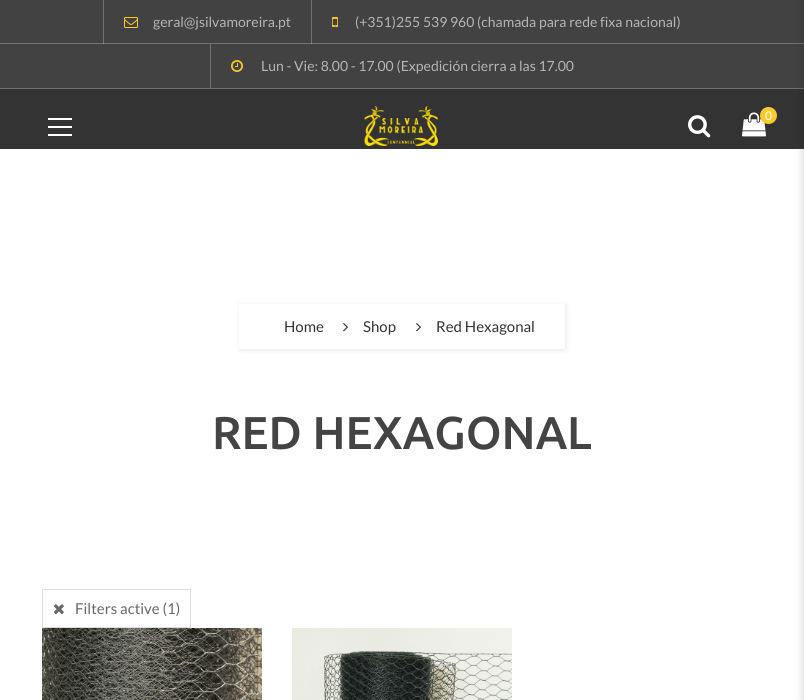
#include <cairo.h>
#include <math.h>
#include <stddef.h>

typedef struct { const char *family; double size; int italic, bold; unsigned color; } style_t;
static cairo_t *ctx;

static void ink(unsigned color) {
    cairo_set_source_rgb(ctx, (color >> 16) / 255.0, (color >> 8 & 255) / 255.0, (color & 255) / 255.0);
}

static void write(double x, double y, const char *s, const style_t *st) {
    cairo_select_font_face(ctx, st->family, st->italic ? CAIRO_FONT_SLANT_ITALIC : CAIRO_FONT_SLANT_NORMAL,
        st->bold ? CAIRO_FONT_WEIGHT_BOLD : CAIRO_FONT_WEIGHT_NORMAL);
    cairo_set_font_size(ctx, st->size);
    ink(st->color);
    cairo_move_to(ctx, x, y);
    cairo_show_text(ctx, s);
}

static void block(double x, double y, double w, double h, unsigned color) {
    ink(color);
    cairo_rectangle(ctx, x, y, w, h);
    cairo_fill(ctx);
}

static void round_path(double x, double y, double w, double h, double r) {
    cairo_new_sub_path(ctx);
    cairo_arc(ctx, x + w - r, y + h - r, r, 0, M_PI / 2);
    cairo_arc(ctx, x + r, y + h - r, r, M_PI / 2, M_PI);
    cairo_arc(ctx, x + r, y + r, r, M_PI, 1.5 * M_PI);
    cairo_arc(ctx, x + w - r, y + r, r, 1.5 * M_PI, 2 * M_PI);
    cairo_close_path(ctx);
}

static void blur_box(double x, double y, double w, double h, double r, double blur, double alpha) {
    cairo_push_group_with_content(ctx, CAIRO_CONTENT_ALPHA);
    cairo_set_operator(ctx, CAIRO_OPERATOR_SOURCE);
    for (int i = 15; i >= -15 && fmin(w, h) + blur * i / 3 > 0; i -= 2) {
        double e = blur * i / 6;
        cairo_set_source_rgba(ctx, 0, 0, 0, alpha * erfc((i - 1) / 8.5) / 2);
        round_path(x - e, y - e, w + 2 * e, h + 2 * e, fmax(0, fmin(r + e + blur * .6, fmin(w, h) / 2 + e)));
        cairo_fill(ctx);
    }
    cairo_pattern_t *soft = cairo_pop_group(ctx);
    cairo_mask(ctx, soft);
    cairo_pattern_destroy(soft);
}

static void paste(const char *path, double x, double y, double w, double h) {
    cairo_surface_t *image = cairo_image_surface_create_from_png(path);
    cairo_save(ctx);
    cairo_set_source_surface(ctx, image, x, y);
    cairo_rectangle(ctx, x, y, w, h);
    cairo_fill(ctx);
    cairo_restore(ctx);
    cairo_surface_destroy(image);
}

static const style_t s1 = {"Lato", 14, 0, 0, 0xb5b5b5};
static const style_t s2 = {"Lato", 12, 0, 0, 0xffffff};
static const style_t s3 = {"Lato", 15, 0, 0, 0x333333};
static const style_t s4 = {"Ubuntu Medium", 46, 0, 0, 0x444444};
static const style_t s5 = {"Lato", 15, 0, 0, 0x686868};

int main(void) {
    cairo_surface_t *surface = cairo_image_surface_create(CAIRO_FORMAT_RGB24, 804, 700);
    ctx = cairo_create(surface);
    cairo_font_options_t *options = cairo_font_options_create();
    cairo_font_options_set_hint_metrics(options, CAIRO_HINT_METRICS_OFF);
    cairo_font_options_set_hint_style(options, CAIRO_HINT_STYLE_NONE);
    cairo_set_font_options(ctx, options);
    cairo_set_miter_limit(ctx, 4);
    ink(0xffffff);
    cairo_paint(ctx);
    block(0, 0, 804, 88, 0x424242);
    block(311, 0, 1, 44, 0x717171);
    block(103, 0, 1, 44, 0x717171);
    block(0, 88, 804, 1, 0x717171);
    paste("pic1.png", 124, 17, 14, 11);
    write(153, 27, "geral@jsilvamoreira.pt", &s1);
    paste("pic2.png", 332, 17, 6, 10);
    write(355, 27, "(+351)255 539 960 (chamada para rede fixa nacional)", &s1);
    block(210, 44, 1, 44, 0x717171);
    paste("pic3.png", 231, 60, 12, 12);
    write(261, 71, "Lun - Vie: 8.00 - 17.00 (Expedición cierra a las 17.00", &s1);
    block(0, 43, 804, 1, 0x717171);
    block(311, 43, 1, 1, 0x919191);
    block(103, 43, 1, 1, 0x919191);
    block(0, 89, 804, 60, 0x333333);
    paste("pic4.png", 364, 106, 74, 40);
    paste("pic5.png", 688, 115, 23, 23);
    paste("pic6.png", 742, 112, 24, 25);
    ink(0xffca2b);
    cairo_arc(ctx, 768.5, 115.5, 8.5, 0, 2 * M_PI);
    cairo_fill(ctx);
    write(765, 120, "0", &s2);
    block(48, 118, 24, 2, 0xffffff);
    block(48, 126, 24, 2, 0xffffff);
    block(48, 134, 24, 2, 0xffffff);
    cairo_save(ctx);
    cairo_set_fill_rule(ctx, CAIRO_FILL_RULE_EVEN_ODD);
    cairo_new_path(ctx);
    cairo_move_to(ctx, 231, 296);
    cairo_line_to(ctx, 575, 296);
    cairo_line_to(ctx, 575, 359);
    cairo_line_to(ctx, 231, 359);
    cairo_close_path(ctx);
    cairo_move_to(ctx, 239, 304);
    cairo_line_to(ctx, 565, 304);
    cairo_line_to(ctx, 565, 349);
    cairo_line_to(ctx, 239, 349);
    cairo_close_path(ctx);
    cairo_clip(ctx);
    ink(0x000000);
    blur_box(240, 305, 326, 45, 0, 2.5, 0.1);
    cairo_restore(ctx);
    write(284, 332, "Home", &s3);
    paste("pic7.png", 343, 323, 5, 9);
    write(363, 332, "Shop", &s3);
    paste("pic7.png", 416, 323, 5, 9);
    write(436, 332, "Red Hexagonal", &s3);
    write(212, 449, "RED HEXAGONAL", &s4);
    cairo_rectangle(ctx, 42.5, 589.5, 148, 38);
    ink(0xdddddd);
    cairo_set_line_width(ctx, 1);
    cairo_stroke(ctx);
    paste("pic8.png", 54, 604, 10, 11);
    write(75, 614, "Filters active (1)", &s5);
    paste("pic9.png", 42, 628, 220, 72);
    paste("pic10.png", 292, 628, 220, 72);
    ink(0x000000);
    blur_box(804, 0, 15, 700, 0, 5, 0.2);
    cairo_surface_write_to_png(surface, "screenshot.png");
    cairo_font_options_destroy(options);
    cairo_destroy(ctx);
    cairo_surface_destroy(surface);
    return 0;
}
